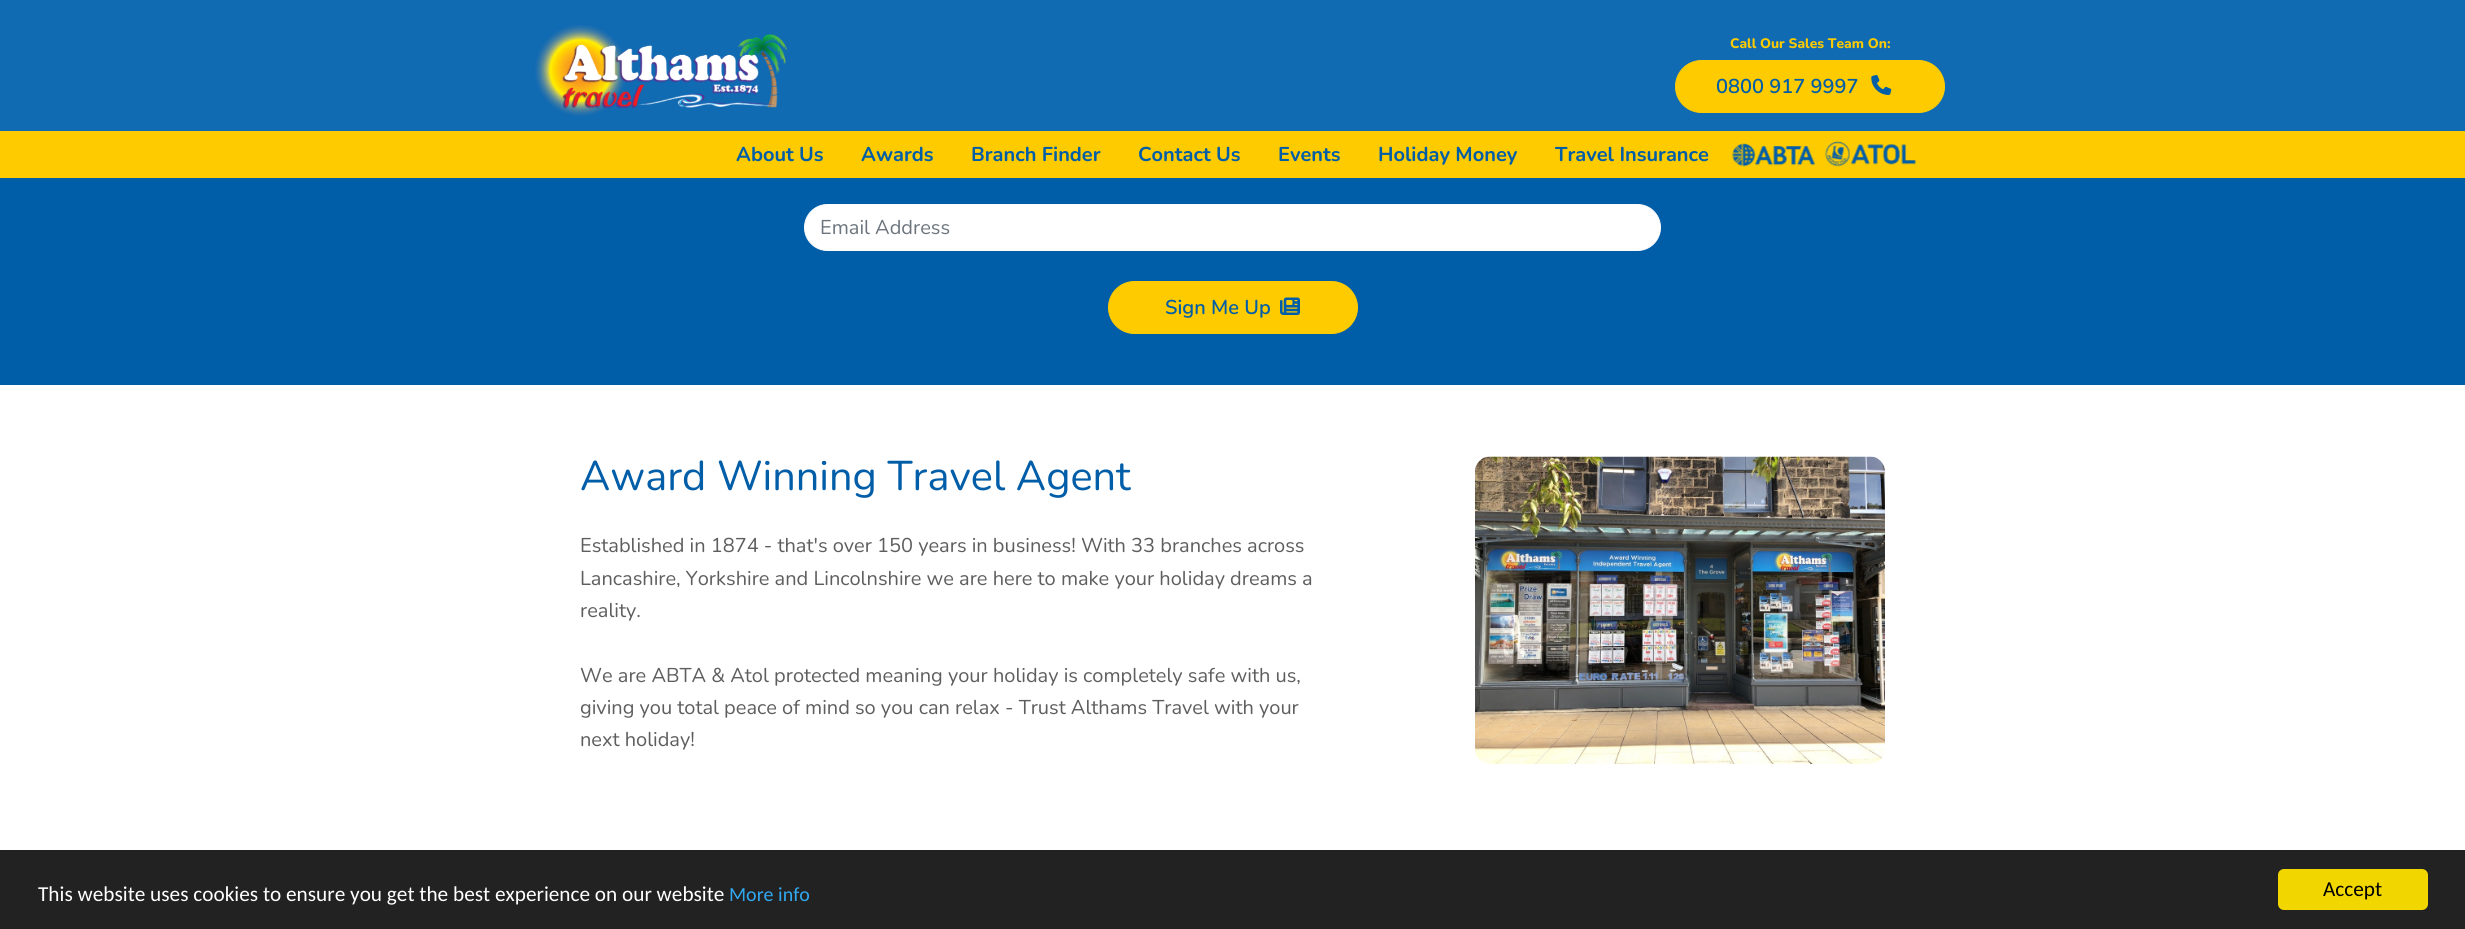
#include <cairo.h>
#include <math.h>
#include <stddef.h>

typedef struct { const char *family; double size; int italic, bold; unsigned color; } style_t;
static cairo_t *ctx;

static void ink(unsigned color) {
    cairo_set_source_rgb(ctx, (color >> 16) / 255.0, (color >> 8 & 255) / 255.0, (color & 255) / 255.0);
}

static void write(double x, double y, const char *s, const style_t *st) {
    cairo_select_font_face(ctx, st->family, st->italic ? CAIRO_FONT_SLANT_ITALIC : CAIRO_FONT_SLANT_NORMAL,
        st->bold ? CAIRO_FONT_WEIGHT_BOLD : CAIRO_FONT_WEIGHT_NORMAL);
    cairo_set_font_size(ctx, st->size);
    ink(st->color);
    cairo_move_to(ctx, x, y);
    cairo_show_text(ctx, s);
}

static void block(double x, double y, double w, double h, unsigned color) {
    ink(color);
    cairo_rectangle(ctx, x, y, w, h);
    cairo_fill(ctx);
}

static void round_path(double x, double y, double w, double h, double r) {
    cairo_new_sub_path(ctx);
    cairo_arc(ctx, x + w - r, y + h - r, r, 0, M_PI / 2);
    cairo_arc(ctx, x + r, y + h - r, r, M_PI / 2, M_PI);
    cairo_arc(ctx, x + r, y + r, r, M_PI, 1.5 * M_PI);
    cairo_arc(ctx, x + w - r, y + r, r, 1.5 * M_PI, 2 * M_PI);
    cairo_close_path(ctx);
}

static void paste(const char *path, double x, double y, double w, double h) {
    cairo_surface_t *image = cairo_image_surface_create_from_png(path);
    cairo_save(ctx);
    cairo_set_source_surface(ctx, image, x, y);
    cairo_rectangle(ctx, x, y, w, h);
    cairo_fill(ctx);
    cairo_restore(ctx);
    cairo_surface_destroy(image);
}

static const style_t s1 = {"Nunito ExtraBold", 13.75, 0, 0, 0xfdcb00};
static const style_t s2 = {"Nunito SemiBold", 20, 0, 0, 0x005da8};
static const style_t s3 = {"Nunito", 20, 0, 1, 0x005da8};
static const style_t s4 = {"Nunito", 20, 0, 0, 0x6c757d};
static const style_t s5 = {"Nunito", 41.5, 0, 0, 0x005da8};
static const style_t s6 = {"Nunito", 20, 0, 0, 0x5e5e5e};
static const style_t s7 = {"Carlito", 21.25, 0, 0, 0xffffff};
static const style_t s8 = {"Carlito", 20, 0, 0, 0x31a8f0};
static const style_t s9 = {"Carlito", 21.25, 0, 0, 0x000000};

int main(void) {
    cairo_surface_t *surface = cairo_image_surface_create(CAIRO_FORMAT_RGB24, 2465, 929);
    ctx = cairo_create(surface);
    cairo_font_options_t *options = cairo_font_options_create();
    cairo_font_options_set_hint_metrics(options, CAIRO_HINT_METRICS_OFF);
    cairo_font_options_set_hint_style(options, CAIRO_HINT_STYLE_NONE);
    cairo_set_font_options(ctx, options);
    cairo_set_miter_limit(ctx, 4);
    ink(0xffffff);
    cairo_paint(ctx);
    block(0, 0, 2465, 131, 0x116bb3);
    paste("pic1.png", 535, 25, 253, 91);
    write(1730, 48, "Call Our Sales Team On:", &s1);
    round_path(1675.5, 60.5, 269, 52, 26);
    cairo_fill_preserve(ctx);
    cairo_set_line_width(ctx, 1);
    cairo_stroke(ctx);
    write(1716, 93, "0800 917 9997", &s2);
    paste("pic2.png", 1871, 75, 21, 20);
    block(0, 131, 2465, 47, 0xfdcb00);
    write(736, 161, "About Us", &s3);
    write(861, 161, "Awards", &s3);
    write(971, 161, "Branch Finder", &s3);
    write(1138, 161, "Contact Us", &s3);
    write(1278, 161, "Events", &s3);
    write(1378, 161, "Holiday Money", &s3);
    write(1555, 161, "Travel Insurance", &s3);
    paste("pic3.png", 1732, 143, 83, 24);
    paste("pic4.png", 1825, 141, 91, 26);
    block(0, 178, 2465, 207, 0x005da8);
    ink(0xffffff);
    round_path(804.5, 204.5, 856, 46, 23);
    cairo_fill_preserve(ctx);
    ink(0xfbfbfb);
    cairo_stroke(ctx);
    write(820, 234, "Email Address", &s4);
    ink(0xfdcb00);
    round_path(1108.5, 281.5, 249, 52, 26);
    cairo_fill_preserve(ctx);
    cairo_stroke(ctx);
    write(1165, 314, "Sign Me Up", &s2);
    paste("pic5.png", 1280, 297, 20, 18);
    write(580, 490, "Award Winning Travel Agent", &s5);
    write(580, 552, "Established in 1874 - that's over 150 years in business! With 33 branches across", &s6);
    write(580, 585, "Lancashire, Yorkshire and Lincolnshire we are here to make your holiday dreams a", &s6);
    write(580, 617, "reality.", &s6);
    write(580, 682, "We are ABTA & Atol protected meaning your holiday is completely safe with us,", &s6);
    write(580, 714, "giving you total peace of mind so you can relax - Trust Althams Travel with your", &s6);
    write(580, 746, "next holiday!", &s6);
    paste("pic6.png", 1475, 456, 410, 308);
    block(0, 850, 2465, 79, 0x222222);
    write(38, 901, "This website uses cookies to ensure you get the best experience on our website", &s7);
    write(729, 901, "More info", &s8);
    ink(0xf1d600);
    round_path(2278, 869, 150, 41, 6);
    cairo_fill(ctx);
    write(2323, 896, "Accept", &s9);
    cairo_surface_write_to_png(surface, "screenshot.png");
    cairo_font_options_destroy(options);
    cairo_destroy(ctx);
    cairo_surface_destroy(surface);
    return 0;
}
